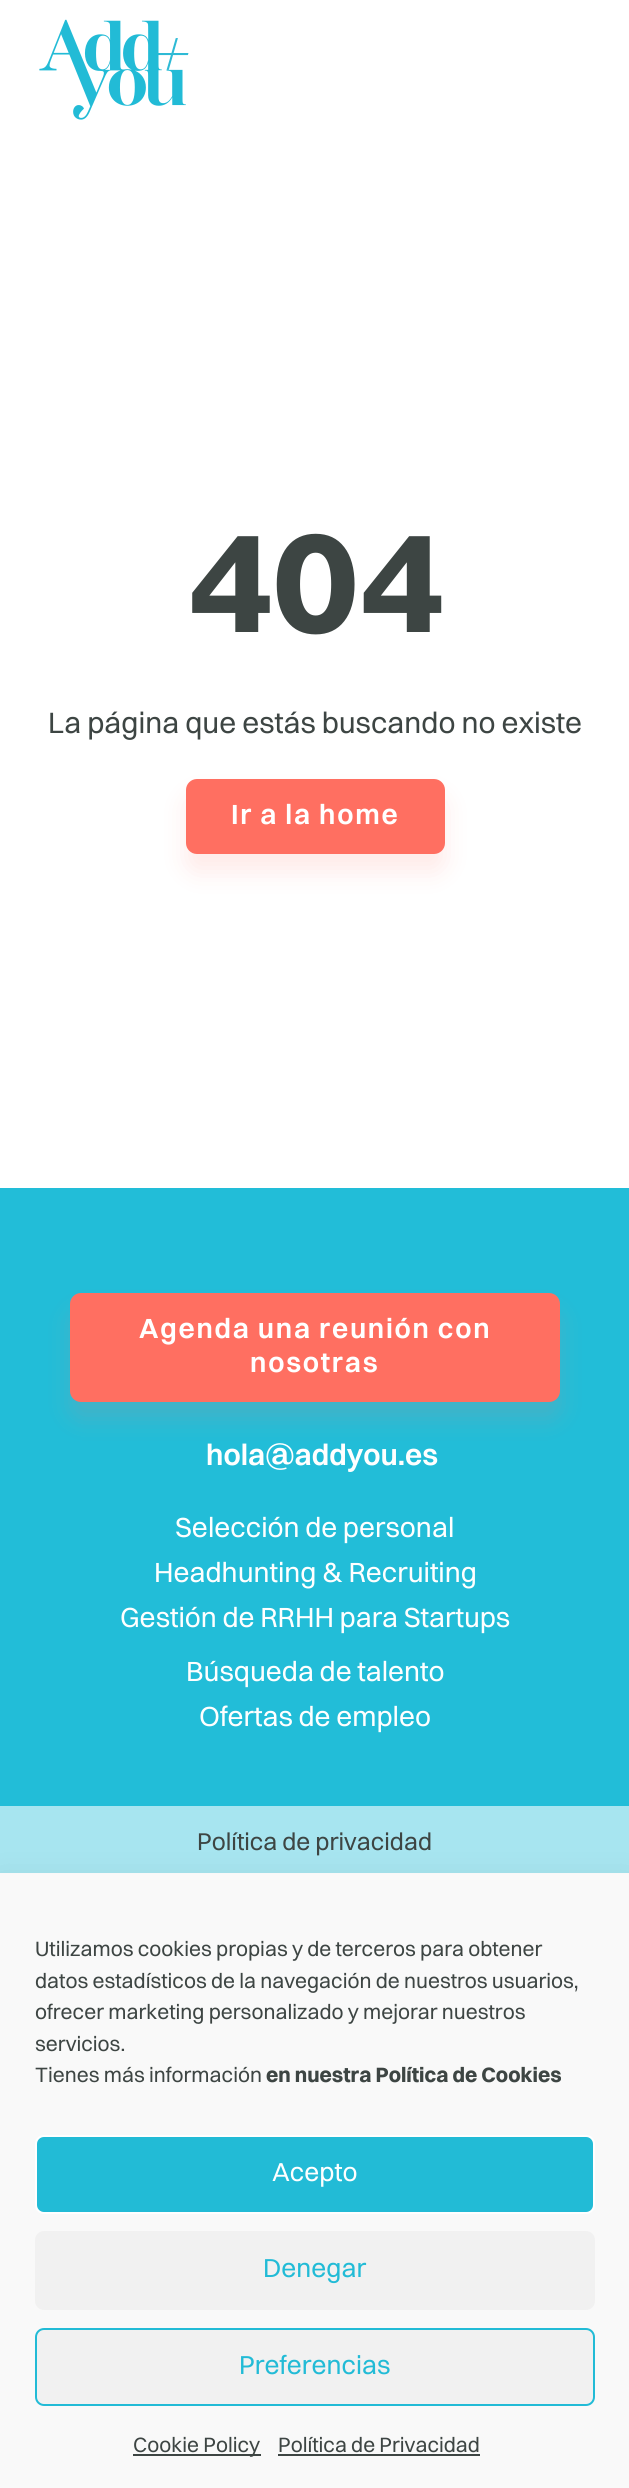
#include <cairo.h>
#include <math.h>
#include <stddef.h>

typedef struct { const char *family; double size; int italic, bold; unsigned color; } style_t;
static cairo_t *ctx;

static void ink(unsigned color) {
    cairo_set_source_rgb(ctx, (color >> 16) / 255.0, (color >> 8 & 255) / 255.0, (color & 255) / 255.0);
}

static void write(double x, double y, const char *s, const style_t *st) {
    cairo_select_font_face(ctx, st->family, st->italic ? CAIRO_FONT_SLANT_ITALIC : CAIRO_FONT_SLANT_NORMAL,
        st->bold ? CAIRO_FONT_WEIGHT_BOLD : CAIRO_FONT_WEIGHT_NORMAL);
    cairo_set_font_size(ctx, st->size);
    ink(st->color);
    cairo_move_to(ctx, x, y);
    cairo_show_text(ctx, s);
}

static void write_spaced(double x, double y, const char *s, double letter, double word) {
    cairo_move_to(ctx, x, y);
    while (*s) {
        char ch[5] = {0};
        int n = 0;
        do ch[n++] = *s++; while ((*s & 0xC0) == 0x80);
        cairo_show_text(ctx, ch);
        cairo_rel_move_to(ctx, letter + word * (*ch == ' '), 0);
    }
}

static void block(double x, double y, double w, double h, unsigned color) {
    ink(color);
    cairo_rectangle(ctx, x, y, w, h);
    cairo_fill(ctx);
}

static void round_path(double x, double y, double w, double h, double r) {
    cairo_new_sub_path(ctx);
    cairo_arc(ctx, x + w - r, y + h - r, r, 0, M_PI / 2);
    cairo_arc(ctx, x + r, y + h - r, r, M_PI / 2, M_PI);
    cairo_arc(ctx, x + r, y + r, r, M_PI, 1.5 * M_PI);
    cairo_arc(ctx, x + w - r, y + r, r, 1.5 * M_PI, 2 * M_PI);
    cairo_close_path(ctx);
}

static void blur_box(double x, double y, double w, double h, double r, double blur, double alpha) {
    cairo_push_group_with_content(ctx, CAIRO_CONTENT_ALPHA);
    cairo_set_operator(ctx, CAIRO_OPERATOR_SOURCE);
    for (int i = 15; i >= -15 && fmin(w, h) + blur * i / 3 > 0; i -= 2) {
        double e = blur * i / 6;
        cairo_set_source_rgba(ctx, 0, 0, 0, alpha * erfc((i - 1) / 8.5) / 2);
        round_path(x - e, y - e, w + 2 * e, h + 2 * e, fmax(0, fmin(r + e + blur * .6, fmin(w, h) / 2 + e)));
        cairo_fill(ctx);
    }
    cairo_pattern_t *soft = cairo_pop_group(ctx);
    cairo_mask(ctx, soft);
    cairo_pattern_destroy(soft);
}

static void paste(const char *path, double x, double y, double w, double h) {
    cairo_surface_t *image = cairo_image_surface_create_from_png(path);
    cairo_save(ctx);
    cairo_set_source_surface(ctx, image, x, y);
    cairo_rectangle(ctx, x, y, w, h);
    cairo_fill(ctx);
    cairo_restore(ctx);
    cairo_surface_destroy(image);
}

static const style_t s1 = {"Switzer", 149, 0, 1, 0x3d4543};
static const style_t s2 = {"Switzer", 29.75, 0, 0, 0x3d4543};
static const style_t s3 = {"Switzer SemiBold", 29.75, 0, 0, 0xffffff};
static const style_t s4 = {"Switzer", 28, 0, 0, 0xffffff};
static const style_t s5 = {"Switzer", 24.5, 0, 0, 0x3d4543};
static const style_t s6 = {"Switzer", 21, 0, 0, 0x3d4543};
static const style_t s7 = {"Switzer", 21, 0, 1, 0x3d4543};
static const style_t s8 = {"Switzer", 26.25, 0, 0, 0xffffff};
static const style_t s9 = {"Switzer", 26.25, 0, 0, 0x22bbd6};

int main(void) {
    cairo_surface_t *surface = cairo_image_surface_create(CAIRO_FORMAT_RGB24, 629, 2488);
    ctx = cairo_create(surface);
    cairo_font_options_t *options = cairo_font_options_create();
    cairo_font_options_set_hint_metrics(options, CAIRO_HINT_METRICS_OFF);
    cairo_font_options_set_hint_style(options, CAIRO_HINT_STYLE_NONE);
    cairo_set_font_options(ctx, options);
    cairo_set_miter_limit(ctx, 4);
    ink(0xffffff);
    cairo_paint(ctx);
    paste("pic1.png", 39, 19, 150, 101);
    write(187, 632, "404", &s1);
    write(48, 733, "La página que estás buscando no existe", &s2);
    ink(0xff7566);
    blur_box(186, 796, 259, 76, 11, 12, 0.15);
    ink(0xff6f61);
    round_path(186, 779, 259, 75, 11);
    cairo_fill(ctx);
    cairo_select_font_face(ctx, "Switzer SemiBold", CAIRO_FONT_SLANT_NORMAL, CAIRO_FONT_WEIGHT_NORMAL);
    cairo_set_font_size(ctx, 28);
    ink(0xffffff);
    write_spaced(231, 824, "Ir a la home", 1.75, 0);
    block(0, 1188, 629, 618, 0x22bdd8);
    ink(0xff7566);
    blur_box(70, 1311, 490, 108, 11, 12, 0.15);
    ink(0xff6f61);
    round_path(70, 1293, 490, 109, 11);
    cairo_fill(ctx);
    ink(0xffffff);
    write_spaced(139, 1338, "Agenda una reunión con", 1.75, 0);
    write_spaced(250, 1372, "nosotras", 1.75, 0);
    write(206, 1465, "hola@addyou.es", &s3);
    write(175, 1537, "Selección de personal", &s4);
    write(154, 1582, "Headhunting & Recruiting", &s4);
    write(120, 1627, "Gestión de RRHH para Startups", &s4);
    write(186, 1681, "Búsqueda de talento", &s4);
    write(199, 1726, "Ofertas de empleo", &s4);
    block(0, 1806, 629, 67, 0xa7e5f0);
    write(197, 1850, "Política de privacidad", &s5);
    ink(0x000000);
    blur_box(0, 1890, 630, 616, 0, 17.5, 0.19);
    block(0, 1874, 629, 614, 0xf9f9f9);
    write(35, 1956, "Utilizamos cookies propias y de terceros para obtener", &s6);
    write(35, 1988, "datos estadísticos de la navegación de nuestros usuarios,", &s6);
    write(35, 2019, "ofrecer marketing personalizado y mejorar nuestros", &s6);
    write(35, 2051, "servicios.", &s6);
    write(35, 2082, "Tienes más información", &s6);
    write(266, 2082, "en nuestra Política de Cookies", &s7);
    ink(0x22bbd6);
    round_path(36, 2136, 558, 77, 8);
    cairo_fill_preserve(ctx);
    ink(0xffffff);
    cairo_stroke(ctx);
    write(272, 2181, "Acepto", &s8);
    ink(0xf1f1f1);
    round_path(35, 2231, 560, 79, 9);
    cairo_fill(ctx);
    write(263, 2277, "Denegar", &s9);
    ink(0xf1f1f1);
    round_path(36, 2329, 558, 76, 8);
    cairo_fill_preserve(ctx);
    ink(0x22bbd6);
    cairo_stroke(ctx);
    write(239, 2374, "Preferencias", &s9);
    block(133, 2454, 128, 2, 0x3d4543);
    write(133, 2452, "Cookie Policy", &s6);
    write(278, 2452, "Política de Privacidad", &s6);
    block(278, 2454, 202, 2, 0x3d4543);
    cairo_surface_write_to_png(surface, "screenshot.png");
    cairo_font_options_destroy(options);
    cairo_destroy(ctx);
    cairo_surface_destroy(surface);
    return 0;
}
